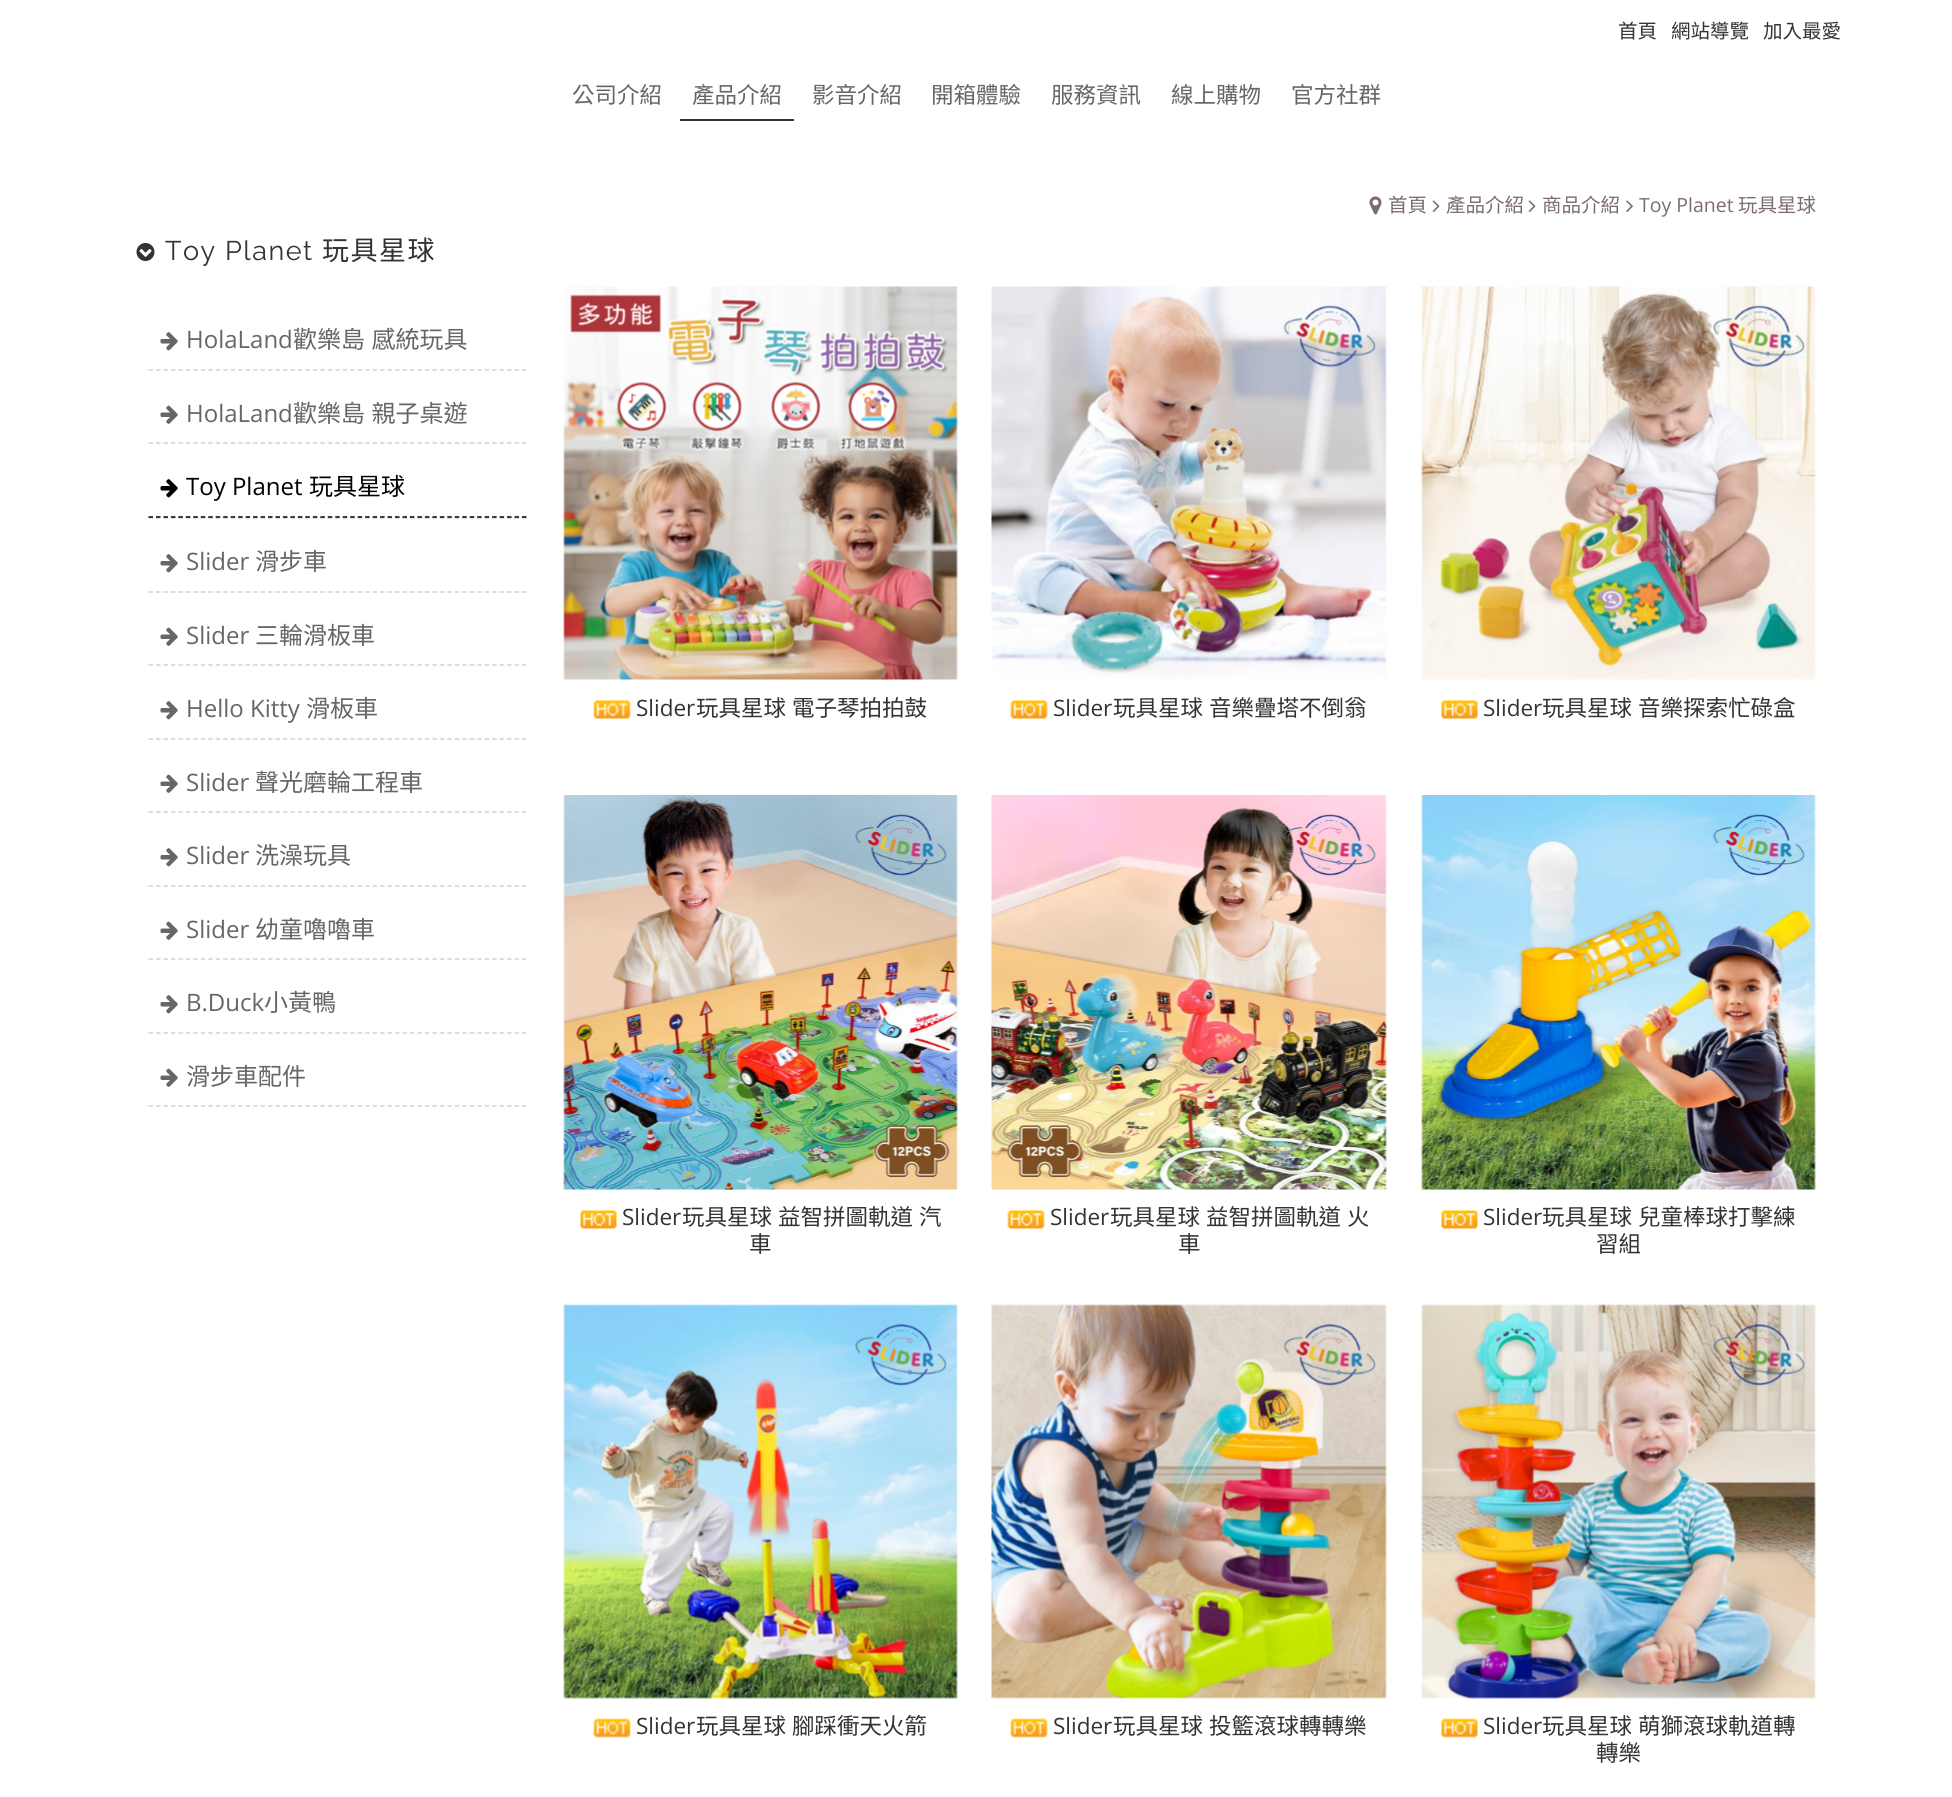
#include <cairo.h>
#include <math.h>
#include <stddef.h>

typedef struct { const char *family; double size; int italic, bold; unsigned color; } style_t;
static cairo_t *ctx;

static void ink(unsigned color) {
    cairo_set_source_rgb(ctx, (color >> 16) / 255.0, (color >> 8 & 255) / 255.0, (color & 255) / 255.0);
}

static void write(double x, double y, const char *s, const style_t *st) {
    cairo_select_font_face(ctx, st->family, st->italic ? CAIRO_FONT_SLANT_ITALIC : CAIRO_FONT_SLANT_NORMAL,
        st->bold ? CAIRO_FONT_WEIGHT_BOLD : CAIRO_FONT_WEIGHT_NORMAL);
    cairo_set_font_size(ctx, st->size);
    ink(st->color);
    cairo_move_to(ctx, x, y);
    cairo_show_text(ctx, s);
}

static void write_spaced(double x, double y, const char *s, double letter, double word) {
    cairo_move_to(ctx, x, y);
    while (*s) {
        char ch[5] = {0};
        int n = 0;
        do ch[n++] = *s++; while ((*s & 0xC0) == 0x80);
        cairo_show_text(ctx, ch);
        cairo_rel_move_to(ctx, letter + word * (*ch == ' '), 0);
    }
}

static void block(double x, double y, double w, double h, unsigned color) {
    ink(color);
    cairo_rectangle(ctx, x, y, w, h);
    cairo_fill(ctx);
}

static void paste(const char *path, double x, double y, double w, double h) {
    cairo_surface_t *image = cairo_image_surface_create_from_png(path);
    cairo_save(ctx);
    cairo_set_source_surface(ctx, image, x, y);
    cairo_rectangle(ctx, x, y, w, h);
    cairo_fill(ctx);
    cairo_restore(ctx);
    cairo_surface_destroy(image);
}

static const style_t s1 = {"Noto Sans CJK TC", 19.5, 0, 0, 0x333333};
static const style_t s2 = {"Noto Sans CJK TC", 22.5, 0, 0, 0x666666};
static const style_t s3 = {"Noto Sans CJK TC", 19.5, 0, 0, 0x7d6c6c};
static const style_t s4 = {"Open Sans", 19.5, 0, 0, 0x7d6c6c};
static const style_t s5 = {"Open Sans", 24, 0, 0, 0x666666};
static const style_t s6 = {"Open Sans", 24, 0, 0, 0x000000};
static const style_t s7 = {"Noto Sans CJK TC", 24, 0, 0, 0x000000};
static const style_t s8 = {"Noto Sans CJK TC", 24, 0, 0, 0x666666};
static const style_t s9 = {"Open Sans", 22.5, 0, 0, 0x333333};
static const style_t s10 = {"Noto Sans CJK TC", 22.5, 0, 0, 0x333333};

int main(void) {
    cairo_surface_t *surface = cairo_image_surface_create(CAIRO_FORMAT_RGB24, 1952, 1797);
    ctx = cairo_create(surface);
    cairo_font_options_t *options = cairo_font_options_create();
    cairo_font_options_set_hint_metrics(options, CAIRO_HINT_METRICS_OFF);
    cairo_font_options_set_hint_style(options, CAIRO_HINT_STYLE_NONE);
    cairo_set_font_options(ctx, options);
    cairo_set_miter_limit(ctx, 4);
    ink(0xffffff);
    cairo_paint(ctx);
    write(1618, 38, "首頁", &s1);
    write(1671, 38, "網站導覽", &s1);
    write(1763, 38, "加入最愛", &s1);
    write(572, 103, "公司介紹", &s2);
    write(692, 103, "產品介紹", &s2);
    write(812, 103, "影音介紹", &s2);
    write(931, 103, "開箱體驗", &s2);
    write(1051, 103, "服務資訊", &s2);
    write(1171, 103, "線上購物", &s2);
    write(1291, 103, "官方社群", &s2);
    block(680, 119, 114, 2, 0x333333);
    paste("pic1.png", 1369, 196, 13, 19);
    write(1388, 212, "首頁", &s3);
    paste("pic2.png", 1432, 200, 8, 12);
    write(1446, 212, "產品介紹", &s3);
    paste("pic2.png", 1528, 200, 8, 12);
    write(1542, 212, "商品介紹", &s3);
    paste("pic3.png", 1626, 200, 7, 12);
    write(1639, 212, "Toy Planet", &s4);
    write(1738, 212, "玩具星球", &s3);
    paste("pic4.png", 136, 243, 19, 18);
    cairo_select_font_face(ctx, "Raleway", CAIRO_FONT_SLANT_NORMAL, CAIRO_FONT_WEIGHT_NORMAL);
    cairo_set_font_size(ctx, 27);
    ink(0x333333);
    write_spaced(165, 260, "Toy Planet", 1.5, 0);
    cairo_select_font_face(ctx, "Noto Sans CJK TC", CAIRO_FONT_SLANT_NORMAL, CAIRO_FONT_WEIGHT_NORMAL);
    write_spaced(322, 260, "玩具星球", 1.5, 0);
    cairo_new_path(ctx);
    cairo_move_to(ctx, 148.5, 370);
    cairo_line_to(ctx, 526.5, 370);
    ink(0xd2d2d2);
    cairo_set_line_width(ctx, 1.5);
    cairo_set_dash(ctx, (double[]){4.5, 2.97}, 2, 0);
    cairo_stroke(ctx);
    paste("pic5.png", 160, 332, 18, 19);
    write(186, 348, "HolaLand", &s5);
    cairo_select_font_face(ctx, "Noto Sans CJK TC", CAIRO_FONT_SLANT_NORMAL, CAIRO_FONT_WEIGHT_NORMAL);
    write_spaced(293, 348, "歡樂島 感統玩具", 0, 1);
    cairo_new_path(ctx);
    cairo_move_to(ctx, 148.5, 443);
    cairo_line_to(ctx, 526.5, 443);
    ink(0xd2d2d2);
    cairo_stroke(ctx);
    paste("pic6.png", 160, 405, 18, 19);
    write(186, 422, "HolaLand", &s5);
    cairo_select_font_face(ctx, "Noto Sans CJK TC", CAIRO_FONT_SLANT_NORMAL, CAIRO_FONT_WEIGHT_NORMAL);
    write_spaced(293, 422, "歡樂島 親子桌遊", 0, 1);
    cairo_new_path(ctx);
    cairo_move_to(ctx, 148.5, 518);
    cairo_line_to(ctx, 526.5, 518);
    ink(0xd2d2d2);
    cairo_stroke(ctx);
    cairo_new_path(ctx);
    cairo_move_to(ctx, 148.5, 517);
    cairo_line_to(ctx, 526.5, 517);
    ink(0x000000);
    cairo_stroke(ctx);
    paste("pic7.png", 160, 479, 18, 19);
    write(186, 495, "Toy Planet", &s6);
    write(309, 495, "玩具星球", &s7);
    cairo_new_path(ctx);
    cairo_move_to(ctx, 148.5, 592);
    cairo_line_to(ctx, 526.5, 592);
    ink(0xd2d2d2);
    cairo_stroke(ctx);
    paste("pic5.png", 160, 554, 18, 19);
    write(186, 570, "Slider", &s5);
    write(255, 570, "滑步車", &s8);
    cairo_new_path(ctx);
    cairo_move_to(ctx, 148.5, 665);
    cairo_line_to(ctx, 526.5, 665);
    ink(0xd2d2d2);
    cairo_stroke(ctx);
    paste("pic6.png", 160, 627, 18, 19);
    write(186, 644, "Slider", &s5);
    write(255, 644, "三輪滑板車", &s8);
    cairo_new_path(ctx);
    cairo_move_to(ctx, 148.5, 739);
    cairo_line_to(ctx, 526.5, 739);
    ink(0xd2d2d2);
    cairo_stroke(ctx);
    paste("pic5.png", 160, 701, 18, 19);
    write(186, 717, "Hello Kitty", &s5);
    write(306, 717, "滑板車", &s8);
    cairo_new_path(ctx);
    cairo_move_to(ctx, 148.5, 812);
    cairo_line_to(ctx, 526.5, 812);
    ink(0xd2d2d2);
    cairo_stroke(ctx);
    paste("pic6.png", 160, 774, 18, 19);
    write(186, 791, "Slider", &s5);
    write(255, 791, "聲光磨輪工程車", &s8);
    cairo_new_path(ctx);
    cairo_move_to(ctx, 148.5, 886);
    cairo_line_to(ctx, 526.5, 886);
    ink(0xd2d2d2);
    cairo_stroke(ctx);
    paste("pic5.png", 160, 848, 18, 19);
    write(186, 864, "Slider", &s5);
    write(255, 864, "洗澡玩具", &s8);
    cairo_new_path(ctx);
    cairo_move_to(ctx, 148.5, 959);
    cairo_line_to(ctx, 526.5, 959);
    ink(0xd2d2d2);
    cairo_stroke(ctx);
    paste("pic6.png", 160, 921, 18, 19);
    write(186, 938, "Slider", &s5);
    write(255, 938, "幼童嚕嚕車", &s8);
    cairo_new_path(ctx);
    cairo_move_to(ctx, 148.5, 1033);
    cairo_line_to(ctx, 526.5, 1033);
    ink(0xd2d2d2);
    cairo_stroke(ctx);
    paste("pic5.png", 160, 995, 18, 19);
    write(186, 1011, "B.Duck", &s5);
    write(264, 1011, "小黃鴨", &s8);
    cairo_new_path(ctx);
    cairo_move_to(ctx, 148.5, 1106);
    cairo_line_to(ctx, 526.5, 1106);
    ink(0xd2d2d2);
    cairo_stroke(ctx);
    paste("pic6.png", 160, 1068, 18, 19);
    write(186, 1085, "滑步車配件", &s8);
    paste("pic8.png", 563, 286, 395, 394);
    paste("pic9.png", 593, 700, 38, 19);
    write(636, 716, "Slider", &s9);
    cairo_select_font_face(ctx, "Noto Sans CJK TC", CAIRO_FONT_SLANT_NORMAL, CAIRO_FONT_WEIGHT_NORMAL);
    write_spaced(696, 716, "玩具星球 電子琴拍拍鼓", 0, 1);
    paste("pic10.png", 991, 286, 396, 393);
    paste("pic9.png", 1010, 700, 38, 19);
    write(1053, 716, "Slider", &s9);
    cairo_select_font_face(ctx, "Noto Sans CJK TC", CAIRO_FONT_SLANT_NORMAL, CAIRO_FONT_WEIGHT_NORMAL);
    write_spaced(1113, 716, "玩具星球 音樂疊塔不倒翁", 0, 1);
    paste("pic11.png", 1421, 286, 395, 394);
    paste("pic12.png", 1441, 700, 37, 19);
    write(1483, 716, "Slider", &s9);
    cairo_select_font_face(ctx, "Noto Sans CJK TC", CAIRO_FONT_SLANT_NORMAL, CAIRO_FONT_WEIGHT_NORMAL);
    write_spaced(1542, 716, "玩具星球 音樂探索忙碌盒", 0, 1);
    paste("pic13.png", 563, 795, 395, 395);
    paste("pic14.png", 580, 1210, 37, 19);
    write(622, 1225, "Slider", &s9);
    cairo_select_font_face(ctx, "Noto Sans CJK TC", CAIRO_FONT_SLANT_NORMAL, CAIRO_FONT_WEIGHT_NORMAL);
    write_spaced(682, 1225, "玩具星球 益智拼圖軌道 汽", 0, 1);
    write(749, 1252, "車", &s10);
    paste("pic15.png", 991, 795, 396, 395);
    paste("pic16.png", 1007, 1210, 38, 19);
    write(1050, 1225, "Slider", &s9);
    cairo_select_font_face(ctx, "Noto Sans CJK TC", CAIRO_FONT_SLANT_NORMAL, CAIRO_FONT_WEIGHT_NORMAL);
    write_spaced(1110, 1225, "玩具星球 益智拼圖軌道 火", 0, 1);
    write(1178, 1252, "車", &s10);
    paste("pic17.png", 1421, 795, 395, 395);
    paste("pic14.png", 1441, 1210, 37, 19);
    write(1483, 1225, "Slider", &s9);
    cairo_select_font_face(ctx, "Noto Sans CJK TC", CAIRO_FONT_SLANT_NORMAL, CAIRO_FONT_WEIGHT_NORMAL);
    write_spaced(1542, 1225, "玩具星球 兒童棒球打擊練", 0, 1);
    write(1596, 1252, "習組", &s10);
    paste("pic18.png", 563, 1304, 395, 395);
    paste("pic19.png", 593, 1718, 38, 20);
    write(636, 1734, "Slider", &s9);
    cairo_select_font_face(ctx, "Noto Sans CJK TC", CAIRO_FONT_SLANT_NORMAL, CAIRO_FONT_WEIGHT_NORMAL);
    write_spaced(696, 1734, "玩具星球 腳踩衝天火箭", 0, 1);
    paste("pic20.png", 991, 1304, 396, 395);
    paste("pic19.png", 1010, 1718, 38, 20);
    write(1053, 1734, "Slider", &s9);
    cairo_select_font_face(ctx, "Noto Sans CJK TC", CAIRO_FONT_SLANT_NORMAL, CAIRO_FONT_WEIGHT_NORMAL);
    write_spaced(1113, 1734, "玩具星球 投籃滾球轉轉樂", 0, 1);
    paste("pic21.png", 1421, 1304, 395, 395);
    paste("pic22.png", 1441, 1718, 37, 20);
    write(1483, 1734, "Slider", &s9);
    cairo_select_font_face(ctx, "Noto Sans CJK TC", CAIRO_FONT_SLANT_NORMAL, CAIRO_FONT_WEIGHT_NORMAL);
    write_spaced(1542, 1734, "玩具星球 萌獅滾球軌道轉", 0, 1);
    write(1596, 1761, "轉樂", &s10);
    cairo_surface_write_to_png(surface, "screenshot.png");
    cairo_font_options_destroy(options);
    cairo_destroy(ctx);
    cairo_surface_destroy(surface);
    return 0;
}
